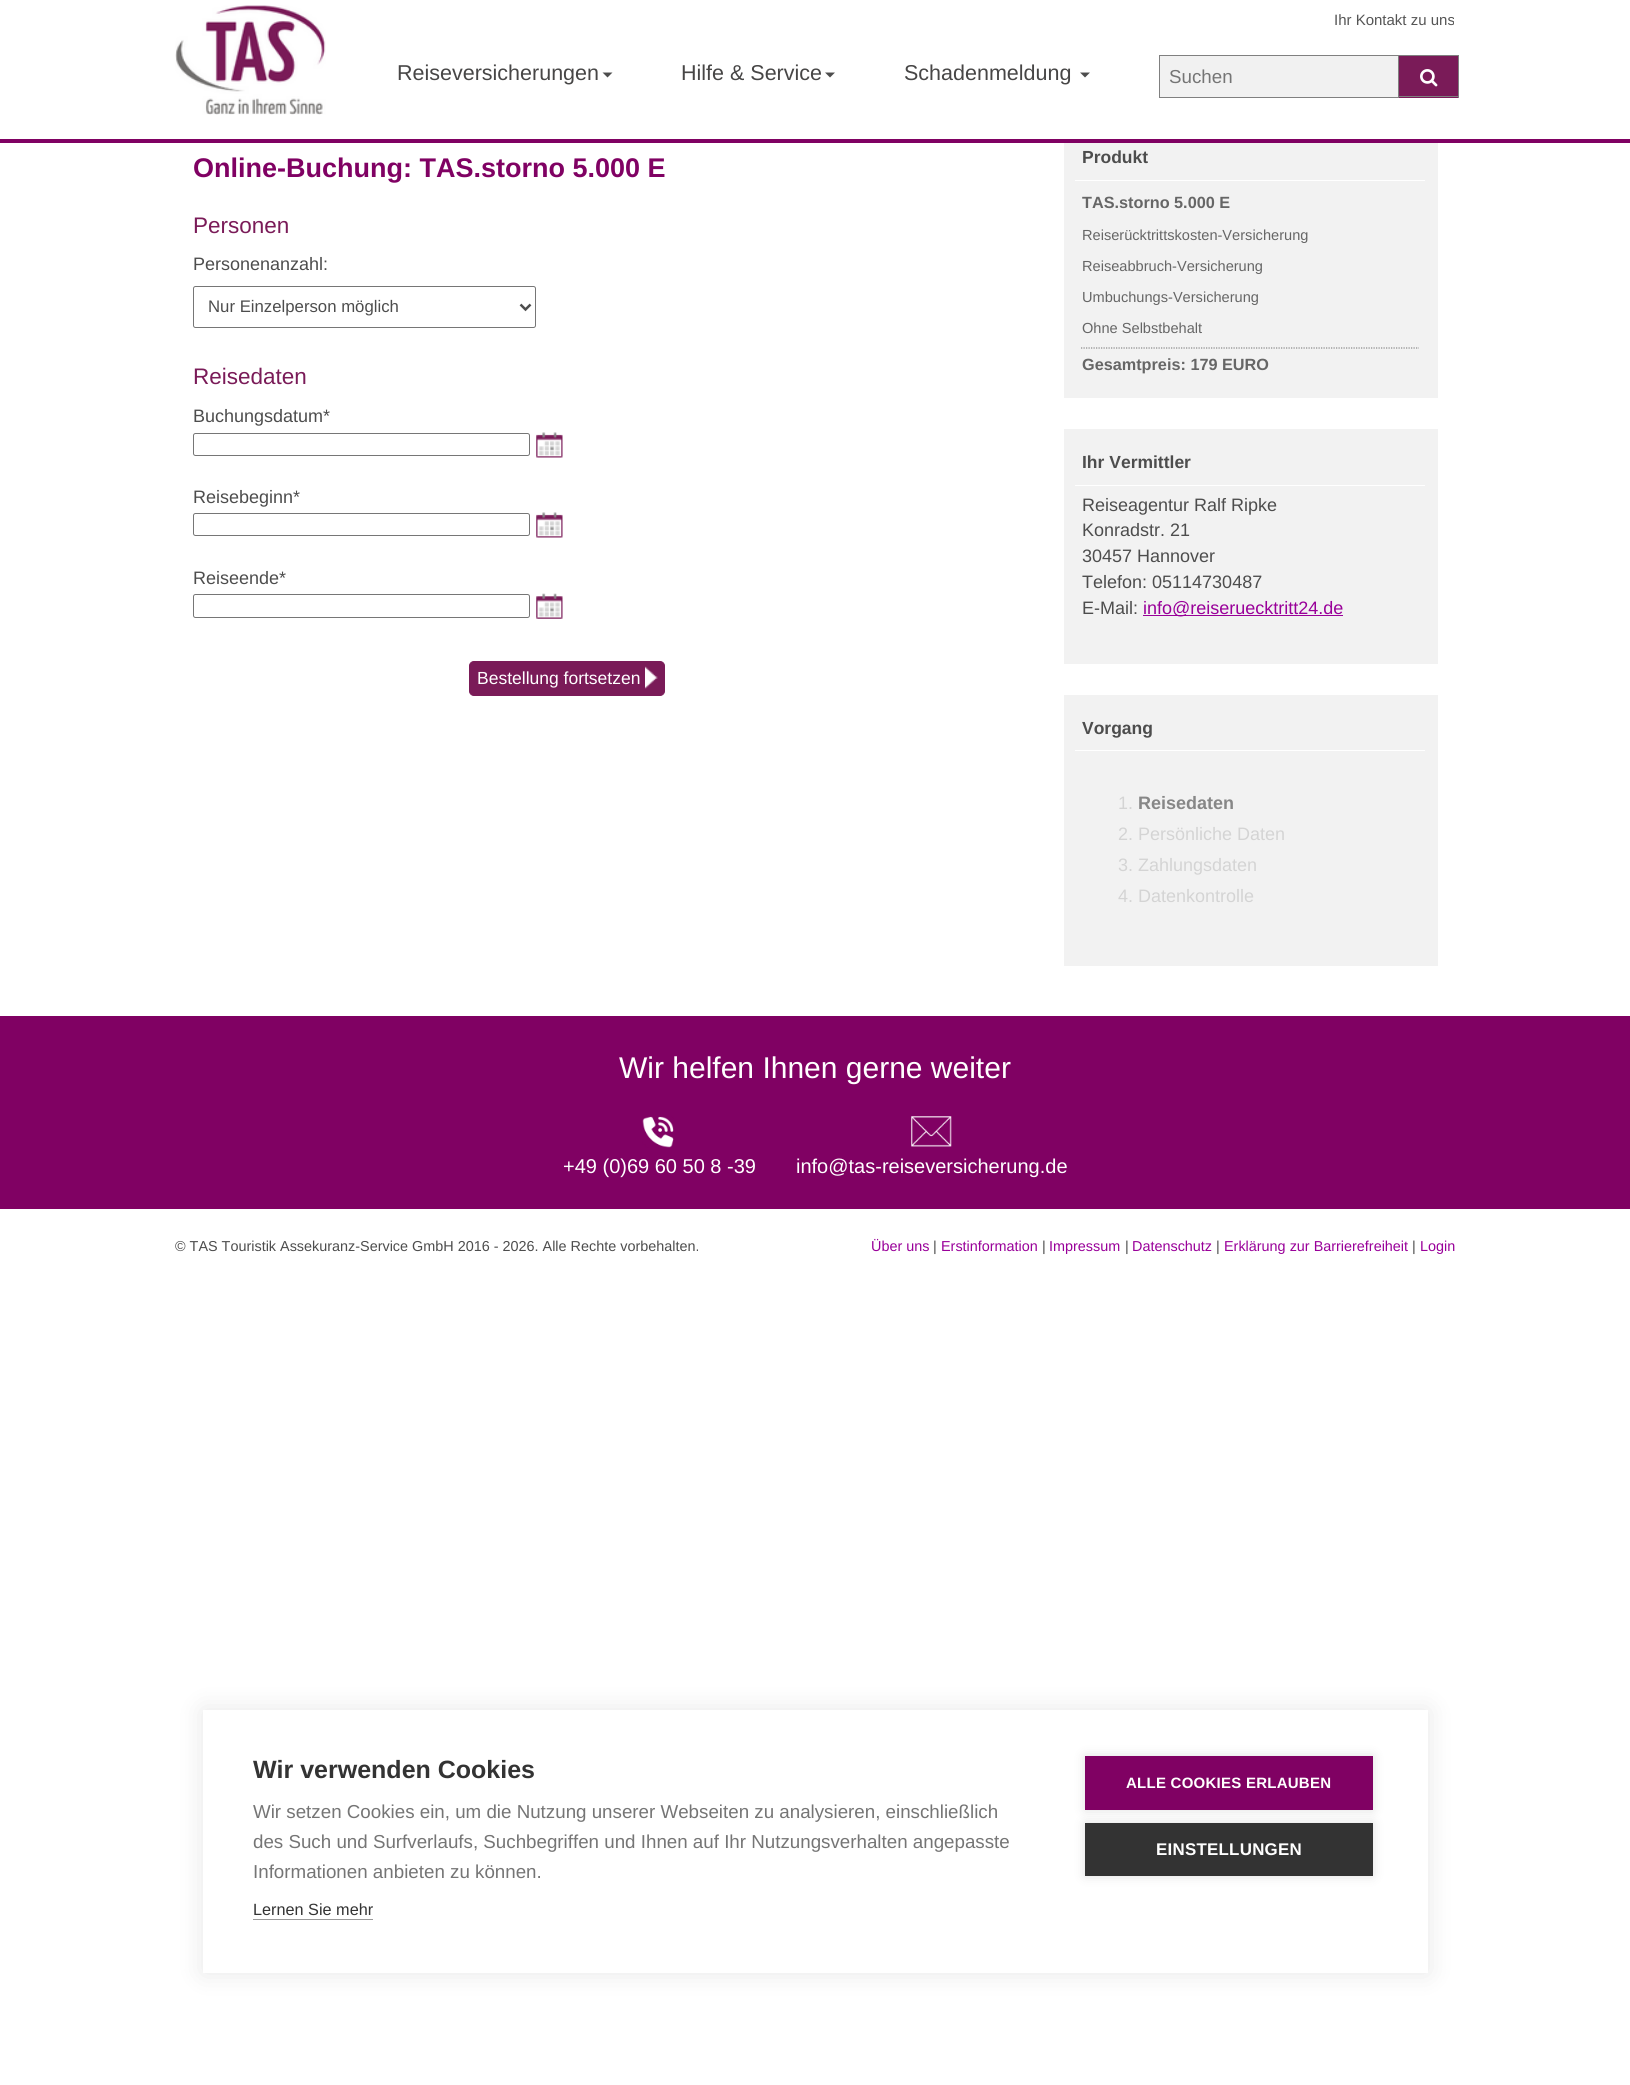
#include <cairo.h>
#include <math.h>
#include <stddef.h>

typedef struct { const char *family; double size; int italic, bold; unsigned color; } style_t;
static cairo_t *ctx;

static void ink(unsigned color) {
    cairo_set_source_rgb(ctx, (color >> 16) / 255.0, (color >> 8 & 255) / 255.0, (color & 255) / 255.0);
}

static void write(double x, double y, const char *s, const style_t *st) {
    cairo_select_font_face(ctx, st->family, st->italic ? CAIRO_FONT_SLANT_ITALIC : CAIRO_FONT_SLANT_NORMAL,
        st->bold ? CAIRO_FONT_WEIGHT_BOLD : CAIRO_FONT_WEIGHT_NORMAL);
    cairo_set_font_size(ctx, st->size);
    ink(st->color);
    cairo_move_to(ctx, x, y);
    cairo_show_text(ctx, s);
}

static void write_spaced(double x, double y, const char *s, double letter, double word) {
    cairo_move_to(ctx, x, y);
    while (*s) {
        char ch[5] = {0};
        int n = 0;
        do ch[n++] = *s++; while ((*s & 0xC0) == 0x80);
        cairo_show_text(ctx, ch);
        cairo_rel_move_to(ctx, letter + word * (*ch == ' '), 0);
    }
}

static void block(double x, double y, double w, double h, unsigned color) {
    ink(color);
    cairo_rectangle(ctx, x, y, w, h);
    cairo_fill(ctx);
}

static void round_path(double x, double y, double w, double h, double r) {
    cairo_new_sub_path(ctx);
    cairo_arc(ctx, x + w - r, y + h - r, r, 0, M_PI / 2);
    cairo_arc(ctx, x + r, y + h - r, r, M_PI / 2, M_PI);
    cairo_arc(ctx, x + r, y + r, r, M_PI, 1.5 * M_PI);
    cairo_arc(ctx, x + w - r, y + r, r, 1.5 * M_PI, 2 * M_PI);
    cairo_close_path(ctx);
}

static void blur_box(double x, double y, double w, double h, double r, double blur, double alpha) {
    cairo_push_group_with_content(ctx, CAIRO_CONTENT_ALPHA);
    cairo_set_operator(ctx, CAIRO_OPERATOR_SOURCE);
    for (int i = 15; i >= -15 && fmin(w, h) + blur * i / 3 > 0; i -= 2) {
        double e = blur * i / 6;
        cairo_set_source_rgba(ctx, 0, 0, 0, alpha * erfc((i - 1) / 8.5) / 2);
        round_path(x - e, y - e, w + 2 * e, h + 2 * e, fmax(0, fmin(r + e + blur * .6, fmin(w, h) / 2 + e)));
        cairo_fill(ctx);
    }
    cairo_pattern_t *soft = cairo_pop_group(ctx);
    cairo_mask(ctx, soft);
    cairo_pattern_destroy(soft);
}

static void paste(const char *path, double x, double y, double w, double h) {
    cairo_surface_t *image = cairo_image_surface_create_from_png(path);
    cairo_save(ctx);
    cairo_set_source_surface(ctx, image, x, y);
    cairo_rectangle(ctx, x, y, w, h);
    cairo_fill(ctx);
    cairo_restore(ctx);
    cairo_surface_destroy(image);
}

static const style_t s1 = {"Liberation Sans", 15, 0, 0, 0x555555};
static const style_t s2 = {"Liberation Sans", 21.5, 0, 0, 0x474646};
static const style_t s3 = {"Liberation Sans", 18.75, 0, 0, 0x757575};
static const style_t s4 = {"Liberation Sans", 27, 0, 1, 0x800163};
static const style_t s5 = {"Liberation Sans", 22.5, 0, 0, 0x7a1b58};
static const style_t s6 = {"Liberation Sans", 18, 0, 0, 0x4d4d4d};
static const style_t s7 = {"Liberation Sans", 16.75, 0, 0, 0x4d4d4d};
static const style_t s8 = {"Liberation Sans", 17.5, 0, 0, 0xffffff};
static const style_t s9 = {"Liberation Sans", 17.5, 0, 1, 0x4d4d4d};
static const style_t s10 = {"Liberation Sans", 16.25, 0, 1, 0x666666};
static const style_t s11 = {"Liberation Sans", 14.6, 0, 0, 0x666666};
static const style_t s12 = {"Liberation Sans", 18, 0, 0, 0x990099};
static const style_t s13 = {"Liberation Sans", 18, 0, 0, 0xd4d4d4};
static const style_t s14 = {"Liberation Sans", 18, 0, 1, 0x878787};
static const style_t s15 = {"Liberation Sans", 30, 0, 0, 0xffffff};
static const style_t s16 = {"Liberation Sans", 20, 0, 0, 0xffffff};
static const style_t s17 = {"Liberation Sans", 14.4, 0, 0, 0x4d4d4d};
static const style_t s18 = {"Liberation Sans", 14.4, 0, 0, 0x990099};
static const style_t s19 = {"Liberation Sans", 25, 0, 1, 0x333333};
static const style_t s20 = {"Liberation Sans", 16.25, 0, 0, 0x333333};

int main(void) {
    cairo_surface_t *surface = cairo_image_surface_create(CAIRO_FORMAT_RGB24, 1630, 2085);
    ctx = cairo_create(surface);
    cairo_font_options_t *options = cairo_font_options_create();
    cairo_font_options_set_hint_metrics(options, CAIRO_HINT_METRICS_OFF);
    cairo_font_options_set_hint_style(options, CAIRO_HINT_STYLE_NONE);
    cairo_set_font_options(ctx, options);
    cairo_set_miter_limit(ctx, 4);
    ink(0xffffff);
    cairo_paint(ctx);
    write(1334, 25, "Ihr Kontakt zu uns", &s1);
    block(0, 139, 1630, 4, 0x800163);
    paste("pic1.png", 175, 5, 151, 110);
    write(397, 80, "Reiseversicherungen", &s2);
    ink(0x4d4d4d);
    cairo_new_path(ctx);
    cairo_move_to(ctx, 602.5, 72.5);
    cairo_line_to(ctx, 612.5, 72.5);
    cairo_line_to(ctx, 607.5, 77.5);
    cairo_close_path(ctx);
    cairo_fill(ctx);
    write(681, 80, "Hilfe & Service", &s2);
    ink(0x4d4d4d);
    cairo_new_path(ctx);
    cairo_move_to(ctx, 825, 72.5);
    cairo_line_to(ctx, 835, 72.5);
    cairo_line_to(ctx, 830, 77.5);
    cairo_close_path(ctx);
    cairo_fill(ctx);
    write(904, 80, "Schadenmeldung", &s2);
    ink(0x4d4d4d);
    cairo_new_path(ctx);
    cairo_move_to(ctx, 1080, 72.5);
    cairo_line_to(ctx, 1090, 72.5);
    cairo_line_to(ctx, 1085, 77.5);
    cairo_close_path(ctx);
    cairo_fill(ctx);
    ink(0xf1f1f1);
    cairo_rectangle(ctx, 1159.5, 55.5, 239, 42);
    cairo_fill_preserve(ctx);
    ink(0x808080);
    cairo_set_line_width(ctx, 1);
    cairo_stroke(ctx);
    write(1169, 83, "Suchen", &s3);
    block(1399, 56, 59, 42, 0x7a1b58);
    block(1399, 55, 60, 1, 0x808080);
    block(1458, 55, 1, 43, 0x808080);
    block(1399, 96, 60, 1, 0x808080);
    paste("pic2.png", 1420, 69, 18, 18);
    write(193, 177, "Online-Buchung: TAS.storno 5.000 E", &s4);
    write(193, 233, "Personen", &s5);
    write(193, 270, "Personenanzahl:", &s6);
    round_path(193.5, 286.5, 342, 41, 2);
    ink(0x767676);
    cairo_stroke(ctx);
    cairo_new_path(ctx);
    cairo_move_to(ctx, 520.5, 304.5);
    cairo_line_to(ctx, 525.5, 309.5);
    cairo_line_to(ctx, 530.5, 304.5);
    ink(0x4d4d4d);
    cairo_set_line_width(ctx, 2.5);
    cairo_stroke(ctx);
    write(208, 312, "Nur Einzelperson möglich", &s7);
    write(193, 384, "Reisedaten", &s5);
    write(193, 422, "Buchungsdatum*", &s6);
    round_path(193.5, 433.5, 336, 22, 2);
    ink(0x767676);
    cairo_set_line_width(ctx, 1);
    cairo_stroke(ctx);
    paste("pic3.png", 536, 432, 27, 26);
    write(193, 503, "Reisebeginn*", &s6);
    round_path(193.5, 513.5, 336, 22, 2);
    ink(0x767676);
    cairo_stroke(ctx);
    paste("pic4.png", 536, 512, 27, 26);
    write(193, 584, "Reiseende*", &s6);
    round_path(193.5, 594.5, 336, 23, 2);
    ink(0x767676);
    cairo_stroke(ctx);
    paste("pic5.png", 536, 593, 27, 26);
    ink(0x7a1b58);
    round_path(469.5, 661.5, 195, 34, 4.5);
    cairo_fill_preserve(ctx);
    cairo_stroke(ctx);
    write(477, 684, "Bestellung fortsetzen", &s8);
    paste("pic6.png", 645, 666, 13, 23);
    block(1064, 143, 374, 255, 0xf2f2f2);
    block(1075, 180, 350, 1, 0xffffff);
    write(1082, 163, "Produkt", &s9);
    write(1082, 208, "TAS.storno 5.000 E", &s10);
    write(1082, 240, "Reiserücktrittskosten-Versicherung", &s11);
    write(1082, 271, "Reiseabbruch-Versicherung", &s11);
    write(1082, 302, "Umbuchungs-Versicherung", &s11);
    write(1082, 333, "Ohne Selbstbehalt", &s11);
    cairo_new_path(ctx);
    cairo_move_to(ctx, 1081, 348);
    cairo_line_to(ctx, 1419, 348);
    ink(0x878787);
    cairo_set_line_width(ctx, 1.2);
    cairo_set_dash(ctx, (double[]){1.25, 1.25}, 2, 0);
    cairo_stroke(ctx);
    write(1082, 370, "Gesamtpreis: 179 EURO", &s10);
    block(1064, 429, 374, 235, 0xf2f2f2);
    block(1075, 485, 350, 1, 0xffffff);
    write(1082, 468, "Ihr Vermittler", &s9);
    write(1082, 511, "Reiseagentur Ralf Ripke", &s6);
    write(1082, 536, "Konradstr. 21", &s6);
    write(1082, 562, "30457 Hannover", &s6);
    write(1082, 588, "Telefon: 05114730487", &s6);
    write(1082, 614, "E-Mail:", &s6);
    block(1143, 615, 200, 1, 0x990099);
    write(1143, 614, "info@reiseruecktritt24.de", &s12);
    block(1064, 695, 374, 271, 0xf2f2f2);
    block(1075, 750, 350, 1, 0xffffff);
    write(1082, 734, "Vorgang", &s9);
    write(1118, 809, "1.", &s13);
    write(1138, 809, "Reisedaten", &s14);
    write(1118, 840, "2. Persönliche Daten", &s13);
    write(1118, 871, "3. Zahlungsdaten", &s13);
    write(1118, 902, "4. Datenkontrolle", &s13);
    block(0, 1016, 1630, 193, 0x800163);
    write(619, 1078, "Wir helfen Ihnen gerne weiter", &s15);
    paste("pic7.png", 642, 1116, 32, 32);
    write(563, 1173, "+49 (0)69 60 50 8 -39", &s16);
    paste("pic8.png", 911, 1116, 41, 31);
    write(796, 1173, "info@tas-reiseversicherung.de", &s16);
    write(175, 1251, "© TAS Touristik Assekuranz-Service GmbH 2016 - 2026. Alle Rechte vorbehalten.", &s17);
    write(871, 1251, "Über uns", &s18);
    write(933, 1251, "|", &s17);
    write(941, 1251, "Erstinformation", &s18);
    write(1042, 1251, "|", &s17);
    write(1049, 1251, "Impressum", &s18);
    write(1125, 1251, "|", &s17);
    write(1132, 1251, "Datenschutz", &s18);
    write(1216, 1251, "|", &s17);
    write(1224, 1251, "Erklärung zur Barrierefreiheit", &s18);
    write(1412, 1251, "|", &s17);
    write(1420, 1251, "Login", &s18);
    ink(0x000000);
    blur_box(203, 1710, 1225, 263, 0, 12.5, 0.1);
    block(203, 1710, 1225, 263, 0xffffff);
    write(253, 1778, "Wir verwenden Cookies", &s19);
    write(253, 1818, "Wir setzen Cookies ein, um die Nutzung unserer Webseiten zu analysieren, einschließlich", &s3);
    write(253, 1848, "des Such und Surfverlaufs, Suchbegriffen und Ihnen auf Ihr Nutzungsverhalten angepasste", &s3);
    write(253, 1878, "Informationen anbieten zu können.", &s3);
    write(253, 1915, "Lernen Sie mehr", &s20);
    block(253, 1919, 120, 1, 0x999999);
    ink(0x000000);
    blur_box(1085, 1756, 288, 54, 0, 6, 0.12);
    block(1085, 1756, 288, 54, 0x800163);
    cairo_select_font_face(ctx, "Liberation Sans", CAIRO_FONT_SLANT_NORMAL, CAIRO_FONT_WEIGHT_BOLD);
    cairo_set_font_size(ctx, 15);
    ink(0xffffff);
    write_spaced(1126, 1788, "ALLE COOKIES ERLAUBEN", 0.25, 0);
    ink(0x000000);
    blur_box(1085, 1823, 288, 53, 0, 6, 0.12);
    block(1085, 1823, 288, 53, 0x333333);
    cairo_set_font_size(ctx, 16.9);
    ink(0xffffff);
    write_spaced(1156, 1855, "EINSTELLUNGEN", 0.25, 0);
    cairo_surface_write_to_png(surface, "screenshot.png");
    cairo_font_options_destroy(options);
    cairo_destroy(ctx);
    cairo_surface_destroy(surface);
    return 0;
}
